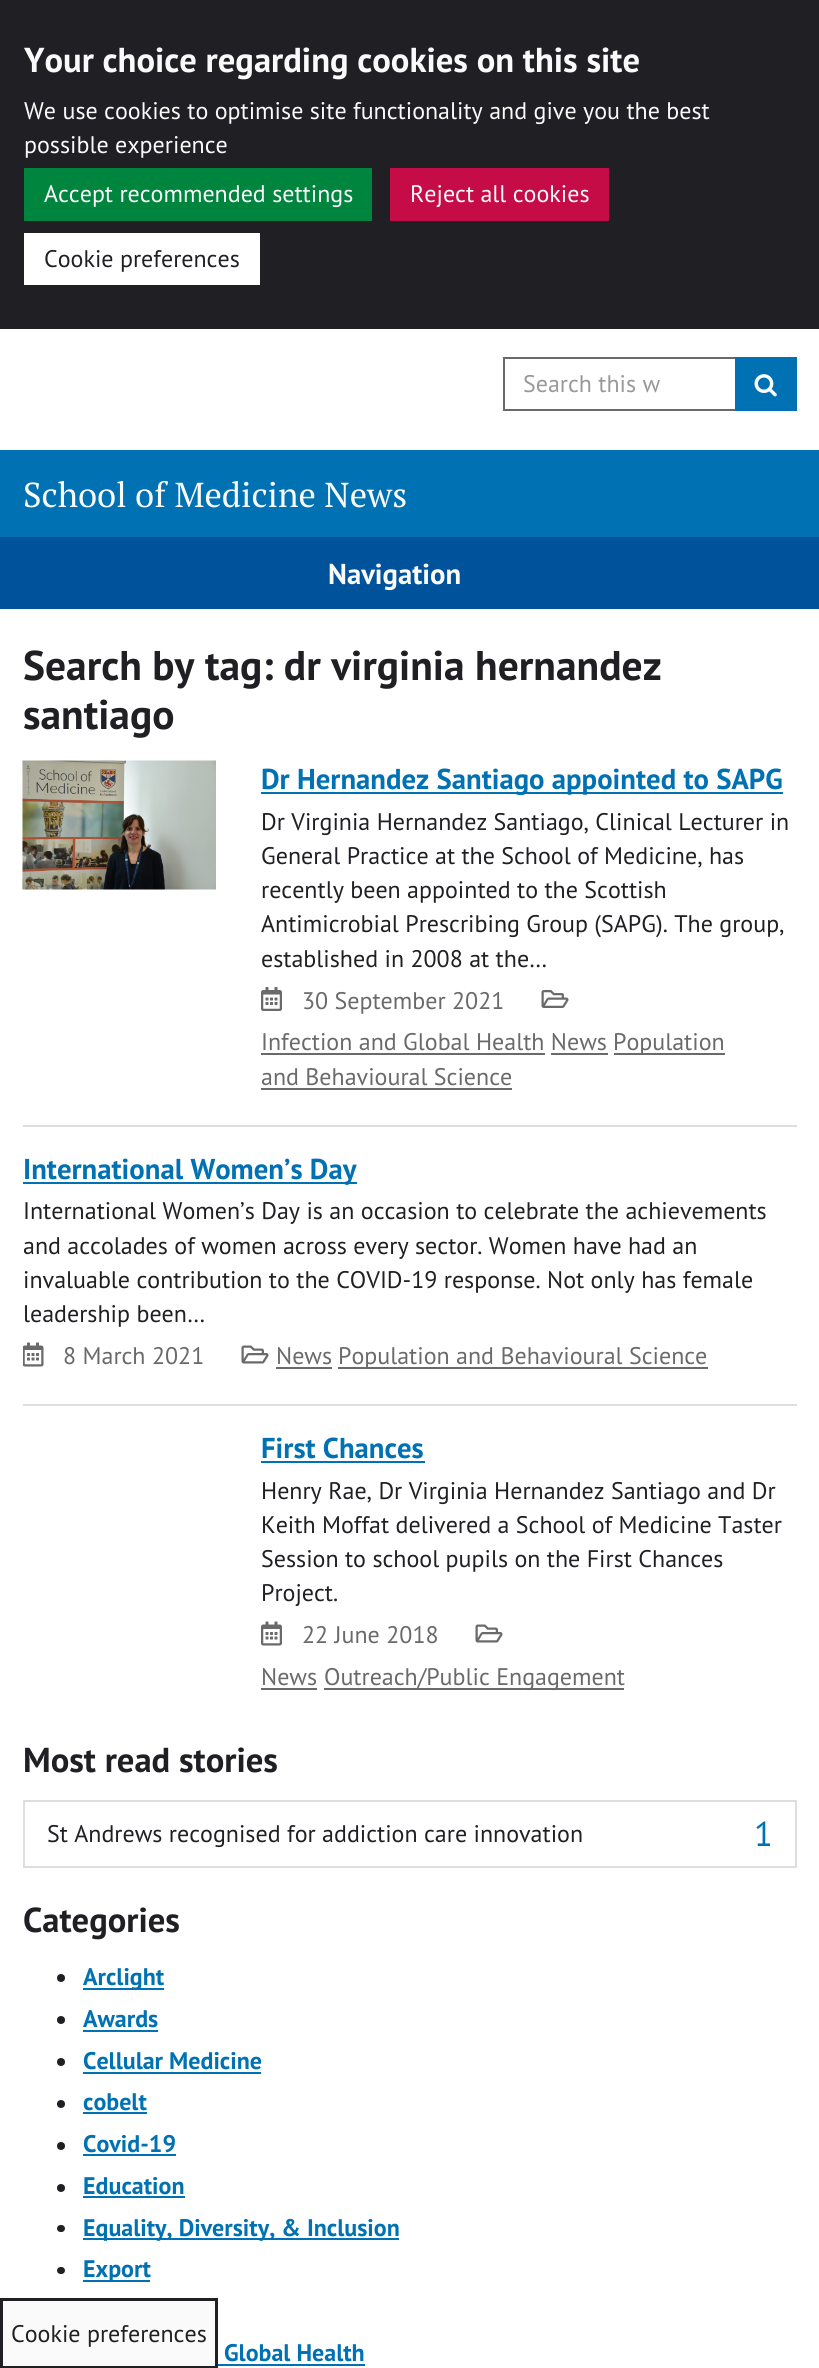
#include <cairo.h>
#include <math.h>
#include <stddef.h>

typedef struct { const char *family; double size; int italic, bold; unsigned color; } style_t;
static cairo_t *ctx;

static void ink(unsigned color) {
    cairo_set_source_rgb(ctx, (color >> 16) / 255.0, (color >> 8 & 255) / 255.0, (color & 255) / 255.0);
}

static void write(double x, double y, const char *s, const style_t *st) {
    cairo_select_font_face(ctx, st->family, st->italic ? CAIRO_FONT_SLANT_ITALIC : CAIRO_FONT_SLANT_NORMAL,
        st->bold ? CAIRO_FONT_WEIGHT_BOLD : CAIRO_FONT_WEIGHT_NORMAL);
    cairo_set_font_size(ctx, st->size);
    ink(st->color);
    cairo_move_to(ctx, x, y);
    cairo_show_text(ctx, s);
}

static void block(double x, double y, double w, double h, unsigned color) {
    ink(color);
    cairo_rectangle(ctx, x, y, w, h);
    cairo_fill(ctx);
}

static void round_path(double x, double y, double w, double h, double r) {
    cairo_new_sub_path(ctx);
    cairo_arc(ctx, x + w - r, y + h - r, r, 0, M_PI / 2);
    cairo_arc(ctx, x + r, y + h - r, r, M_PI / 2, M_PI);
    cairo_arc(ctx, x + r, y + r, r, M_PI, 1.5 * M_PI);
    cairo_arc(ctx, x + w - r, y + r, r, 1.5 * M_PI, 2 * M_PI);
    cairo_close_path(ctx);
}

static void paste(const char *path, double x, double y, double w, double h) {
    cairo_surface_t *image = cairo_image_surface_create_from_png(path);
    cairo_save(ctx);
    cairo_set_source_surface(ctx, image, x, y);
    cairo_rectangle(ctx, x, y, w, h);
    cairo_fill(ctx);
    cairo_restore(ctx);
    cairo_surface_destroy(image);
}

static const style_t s1 = {"PT Sans", 34.6, 0, 1, 0xfafafa};
static const style_t s2 = {"PT Sans", 24, 0, 0, 0xfafafa};
static const style_t s3 = {"PT Sans", 24, 0, 0, 0x202024};
static const style_t s4 = {"PT Sans", 24, 0, 0, 0x999999};
static const style_t s5 = {"PT Serif", 34.6, 0, 0, 0xfafafa};
static const style_t s6 = {"PT Sans", 28.75, 0, 1, 0xfafafa};
static const style_t s7 = {"PT Sans", 41.5, 0, 1, 0x202024};
static const style_t s8 = {"PT Sans", 28.75, 0, 1, 0x0071b3};
static const style_t s9 = {"PT Sans", 24, 0, 0, 0x6a6a6b};
static const style_t s10 = {"PT Sans", 34.6, 0, 1, 0x202024};
static const style_t s11 = {"PT Sans", 34.6, 0, 0, 0x0071b3};
static const style_t s12 = {"PT Sans", 24, 0, 1, 0x0071b3};

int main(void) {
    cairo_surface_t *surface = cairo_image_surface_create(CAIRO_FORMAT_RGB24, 819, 2368);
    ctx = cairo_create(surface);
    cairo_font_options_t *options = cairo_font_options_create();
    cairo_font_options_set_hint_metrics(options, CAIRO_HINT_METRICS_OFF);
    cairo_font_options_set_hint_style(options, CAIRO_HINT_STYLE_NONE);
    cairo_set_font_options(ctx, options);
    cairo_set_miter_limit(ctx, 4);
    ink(0xffffff);
    cairo_paint(ctx);
    block(0, 0, 819, 329, 0x202024);
    write(24, 72, "Your choice regarding cookies on this site", &s1);
    write(24, 119, "We use cookies to optimise site functionality and give you the best", &s2);
    write(24, 153, "possible experience", &s2);
    block(24, 168, 348, 53, 0x00853f);
    write(44, 202, "Accept recommended settings", &s2);
    block(390, 168, 219, 53, 0xc60c46);
    write(410, 202, "Reject all cookies", &s2);
    block(24, 233, 236, 52, 0xffffff);
    write(44, 267, "Cookie preferences", &s3);
    cairo_rectangle(ctx, 504, 358, 232, 52);
    ink(0x6a6a6b);
    cairo_stroke(ctx);
    write(523, 392, "Search this w", &s4);
    block(735, 357, 62, 54, 0x0071b3);
    paste("pic1.png", 754, 374, 23, 23);
    block(0, 450, 819, 87, 0x0071b3);
    write(23, 507, "School of Medicine News", &s5);
    block(0, 537, 819, 72, 0x00539b);
    write(328, 584, "Navigation", &s6);
    write(23, 680, "Search by tag: dr virginia hernandez", &s7);
    write(23, 729, "santiago", &s7);
    paste("pic2.png", 22, 760, 194, 130);
    block(261, 792, 522, 2, 0x0071b3);
    write(261, 789, "Dr Hernandez Santiago appointed to SAPG", &s8);
    write(261, 830, "Dr Virginia Hernandez Santiago, Clinical Lecturer in", &s3);
    write(261, 864, "General Practice at the School of Medicine, has", &s3);
    write(261, 898, "recently been appointed to the Scottish", &s3);
    write(261, 932, "Antimicrobial Prescribing Group (SAPG). The group,", &s3);
    write(261, 967, "established in 2008 at the…", &s3);
    paste("pic3.png", 261, 987, 21, 24);
    write(302, 1009, "30 September 2021", &s9);
    paste("pic4.png", 541, 990, 28, 18);
    write(261, 1050, "Infection and Global Health News", &s9);
    block(261, 1053, 284, 2, 0x6a6a6b);
    block(614, 1053, 111, 2, 0x6a6a6b);
    write(613, 1050, "Population", &s9);
    block(551, 1053, 57, 2, 0x6a6a6b);
    write(261, 1085, "and Behavioural Science", &s9);
    block(261, 1088, 251, 2, 0x6a6a6b);
    block(23, 1125, 774, 2, 0xdedede);
    block(23, 1182, 334, 2, 0x0071b3);
    write(23, 1179, "International Women’s Day", &s8);
    write(23, 1219, "International Women’s Day is an occasion to celebrate the achievements", &s3);
    write(23, 1254, "and accolades of women across every sector. Women have had an", &s3);
    write(23, 1288, "invaluable contribution to the COVID-19 response. Not only has female", &s3);
    write(23, 1322, "leadership been…", &s3);
    paste("pic5.png", 23, 1342, 21, 25);
    write(63, 1364, "8 March 2021", &s9);
    paste("pic6.png", 241, 1345, 28, 19);
    write(276, 1364, "News", &s9);
    block(276, 1367, 56, 2, 0x6a6a6b);
    block(338, 1367, 370, 2, 0x6a6a6b);
    write(338, 1364, "Population and Behavioural Science", &s9);
    block(23, 1404, 774, 2, 0xdedede);
    write(261, 1458, "First Chances", &s8);
    block(261, 1461, 164, 2, 0x0071b3);
    write(261, 1499, "Henry Rae, Dr Virginia Hernandez Santiago and Dr", &s3);
    write(261, 1533, "Keith Moffat delivered a School of Medicine Taster", &s3);
    write(261, 1567, "Session to school pupils on the First Chances", &s3);
    write(261, 1601, "Project.", &s3);
    paste("pic7.png", 261, 1621, 21, 25);
    write(302, 1643, "22 June 2018", &s9);
    paste("pic6.png", 475, 1624, 28, 19);
    write(261, 1685, "News", &s9);
    block(261, 1688, 56, 2, 0x6a6a6b);
    block(324, 1688, 300, 2, 0x6a6a6b);
    write(324, 1685, "Outreach/Public Engagement", &s9);
    write(23, 1772, "Most read stories", &s10);
    cairo_rectangle(ctx, 24, 1801, 772, 66);
    ink(0xdedede);
    cairo_stroke(ctx);
    write(47, 1842, "St Andrews recognised for addiction care innovation", &s3);
    write(754, 1846, "1", &s11);
    write(23, 1932, "Categories", &s10);
    cairo_new_path(ctx);
    cairo_arc(ctx, 61, 1978, 4, 0, 2 * M_PI);
    cairo_fill(ctx);
    block(83, 1988, 81, 2, 0x0071b3);
    write(83, 1985, "Arclight", &s12);
    ink(0x202024);
    cairo_new_path(ctx);
    cairo_arc(ctx, 61, 2020, 4, 0, 2 * M_PI);
    cairo_fill(ctx);
    write(83, 2027, "Awards", &s12);
    block(83, 2030, 75, 2, 0x0071b3);
    ink(0x202024);
    cairo_new_path(ctx);
    cairo_arc(ctx, 61, 2062, 4, 0, 2 * M_PI);
    cairo_fill(ctx);
    write(83, 2069, "Cellular Medicine", &s12);
    block(83, 2072, 178, 2, 0x0071b3);
    ink(0x202024);
    cairo_new_path(ctx);
    cairo_arc(ctx, 61, 2104, 4, 0, 2 * M_PI);
    cairo_fill(ctx);
    write(83, 2110, "cobelt", &s12);
    block(83, 2112, 64, 2, 0x0071b3);
    ink(0x202024);
    cairo_new_path(ctx);
    cairo_arc(ctx, 61, 2146, 4, 0, 2 * M_PI);
    cairo_fill(ctx);
    write(83, 2152, "Covid-19", &s12);
    block(83, 2154, 93, 2, 0x0071b3);
    ink(0x202024);
    cairo_new_path(ctx);
    cairo_arc(ctx, 61, 2188, 4, 0, 2 * M_PI);
    cairo_fill(ctx);
    write(83, 2194, "Education", &s12);
    block(83, 2196, 102, 2, 0x0071b3);
    ink(0x202024);
    round_path(57, 2225, 8, 7, 3.5);
    cairo_fill(ctx);
    block(83, 2238, 316, 2, 0x0071b3);
    write(83, 2236, "Equality, Diversity, & Inclusion", &s12);
    ink(0x202024);
    round_path(57, 2267, 8, 7, 3.5);
    cairo_fill(ctx);
    block(83, 2280, 67, 2, 0x0071b3);
    write(83, 2277, "Export", &s12);
    write(224, 2361, "Global Health", &s12);
    block(218, 2364, 147, 2, 0x0071b3);
    ink(0xfafafa);
    cairo_rectangle(ctx, 1.5, 2299.5, 215, 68);
    cairo_fill_preserve(ctx);
    ink(0x202024);
    cairo_set_line_width(ctx, 3);
    cairo_stroke(ctx);
    write(11, 2342, "Cookie preferences", &s3);
    cairo_surface_write_to_png(surface, "screenshot.png");
    cairo_font_options_destroy(options);
    cairo_destroy(ctx);
    cairo_surface_destroy(surface);
    return 0;
}
